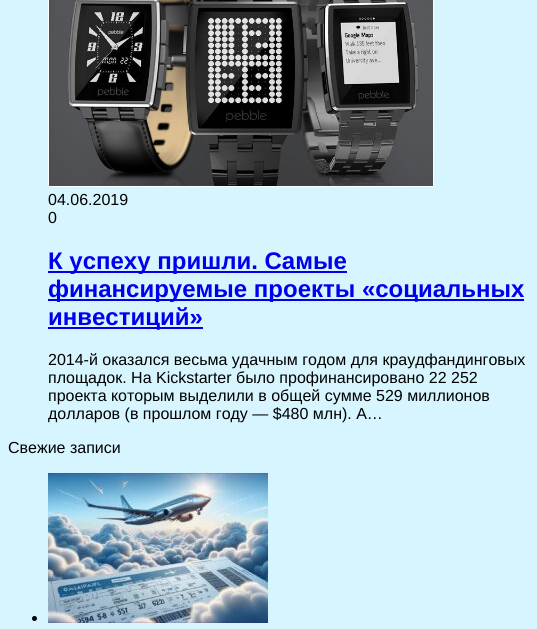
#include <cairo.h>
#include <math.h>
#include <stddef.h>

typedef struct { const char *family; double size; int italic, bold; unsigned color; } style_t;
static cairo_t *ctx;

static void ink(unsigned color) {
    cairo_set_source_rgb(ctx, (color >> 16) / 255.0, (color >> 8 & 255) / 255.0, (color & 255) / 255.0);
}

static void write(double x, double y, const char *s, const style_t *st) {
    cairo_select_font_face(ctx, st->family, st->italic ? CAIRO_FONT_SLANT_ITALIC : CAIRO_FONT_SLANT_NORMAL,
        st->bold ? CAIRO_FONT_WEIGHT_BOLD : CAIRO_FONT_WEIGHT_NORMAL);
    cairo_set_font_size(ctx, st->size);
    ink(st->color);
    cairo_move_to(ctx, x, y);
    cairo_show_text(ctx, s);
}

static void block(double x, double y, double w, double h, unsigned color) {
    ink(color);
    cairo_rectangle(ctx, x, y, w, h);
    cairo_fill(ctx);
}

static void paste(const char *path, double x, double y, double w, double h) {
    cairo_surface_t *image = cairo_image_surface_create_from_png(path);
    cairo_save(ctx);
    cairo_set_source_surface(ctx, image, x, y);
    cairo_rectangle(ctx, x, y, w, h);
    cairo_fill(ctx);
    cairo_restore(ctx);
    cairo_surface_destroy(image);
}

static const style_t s1 = {"Liberation Sans", 16, 0, 0, 0x000000};
static const style_t s2 = {"Liberation Sans", 24, 0, 1, 0x0000ee};

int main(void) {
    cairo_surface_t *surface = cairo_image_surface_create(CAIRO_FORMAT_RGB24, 537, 629);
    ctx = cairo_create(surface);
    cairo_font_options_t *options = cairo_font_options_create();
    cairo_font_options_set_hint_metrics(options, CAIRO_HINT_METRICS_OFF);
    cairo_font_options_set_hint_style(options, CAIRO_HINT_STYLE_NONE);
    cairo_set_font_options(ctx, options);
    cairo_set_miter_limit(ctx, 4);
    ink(0xd7f5ff);
    cairo_paint(ctx);
    paste("pic1.png", 48, 0, 386, 187);
    write(48, 205, "04.06.2019", &s1);
    write(48, 223, "0", &s1);
    block(48, 271, 299, 2, 0x0000ee);
    write(48, 269, "К успеху пришли. Самые", &s2);
    block(48, 299, 476, 2, 0x0000ee);
    write(48, 297, "финансируемые проекты «социальных", &s2);
    block(48, 327, 155, 2, 0x0000ee);
    write(48, 325, "инвестиций»", &s2);
    write(48, 365, "2014-й оказался весьма удачным годом для краудфандинговых", &s1);
    write(48, 383, "площадок. На Kickstarter было профинансировано 22 252", &s1);
    write(48, 401, "проекта которым выделили в общей сумме 529 миллионов", &s1);
    write(48, 419, "долларов (в прошлом году — $480 млн). А…", &s1);
    write(8, 453, "Свежие записи", &s1);
    cairo_new_path(ctx);
    cairo_arc(ctx, 34.5, 618.5, 2.5, 0, 2 * M_PI);
    cairo_fill(ctx);
    paste("pic2.png", 48, 473, 220, 150);
    cairo_surface_write_to_png(surface, "screenshot.png");
    cairo_font_options_destroy(options);
    cairo_destroy(ctx);
    cairo_surface_destroy(surface);
    return 0;
}
